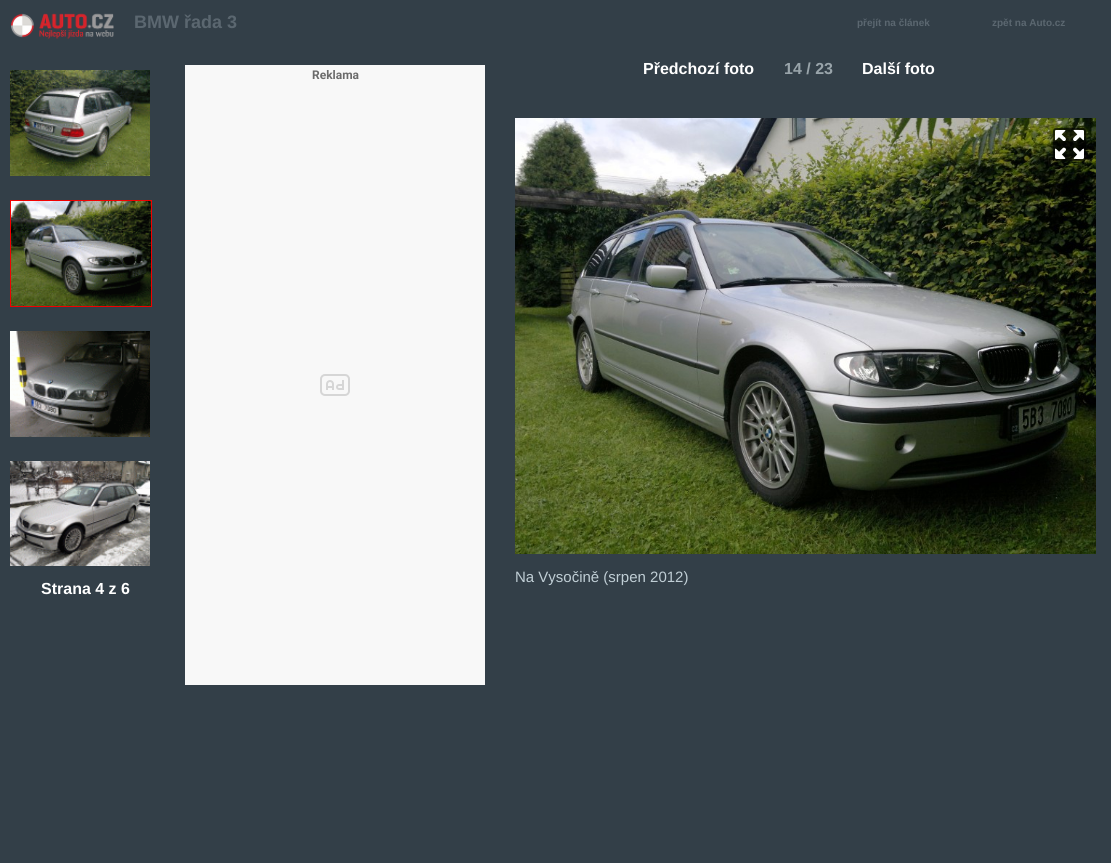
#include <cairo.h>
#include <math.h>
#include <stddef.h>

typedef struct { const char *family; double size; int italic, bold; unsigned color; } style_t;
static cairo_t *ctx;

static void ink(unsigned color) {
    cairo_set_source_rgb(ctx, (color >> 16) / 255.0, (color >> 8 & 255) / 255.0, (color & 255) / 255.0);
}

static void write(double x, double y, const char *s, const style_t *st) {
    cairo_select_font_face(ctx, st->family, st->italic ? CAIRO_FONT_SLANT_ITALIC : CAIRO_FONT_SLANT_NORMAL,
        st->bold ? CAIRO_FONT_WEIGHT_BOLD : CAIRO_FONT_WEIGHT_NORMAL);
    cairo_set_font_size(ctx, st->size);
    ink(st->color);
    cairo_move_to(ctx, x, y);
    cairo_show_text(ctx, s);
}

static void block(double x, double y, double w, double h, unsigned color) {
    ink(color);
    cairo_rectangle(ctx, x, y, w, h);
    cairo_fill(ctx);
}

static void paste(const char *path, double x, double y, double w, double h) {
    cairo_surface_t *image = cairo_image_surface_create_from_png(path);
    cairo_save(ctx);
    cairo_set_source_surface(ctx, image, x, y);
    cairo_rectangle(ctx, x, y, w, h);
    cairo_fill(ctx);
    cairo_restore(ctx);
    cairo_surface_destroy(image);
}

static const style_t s1 = {"Liberation Sans", 18, 0, 1, 0x5b6770};
static const style_t s2 = {"Liberation Sans", 10, 0, 1, 0x5b6770};
static const style_t s3 = {"Roboto", 12, 0, 1, 0x6b6b6b};
static const style_t s4 = {"Liberation Sans", 16, 0, 1, 0xffffff};
static const style_t s5 = {"Liberation Sans", 16, 0, 1, 0x99a4aa};
static const style_t s6 = {"Liberation Sans", 15, 0, 0, 0xc0ced5};

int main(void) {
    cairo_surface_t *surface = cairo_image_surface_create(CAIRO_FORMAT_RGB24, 1111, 863);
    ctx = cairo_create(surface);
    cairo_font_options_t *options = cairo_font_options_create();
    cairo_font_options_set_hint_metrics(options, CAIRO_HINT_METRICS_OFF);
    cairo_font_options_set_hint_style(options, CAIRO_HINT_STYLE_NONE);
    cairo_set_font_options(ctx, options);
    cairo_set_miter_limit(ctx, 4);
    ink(0x333f48);
    cairo_paint(ctx);
    paste("pic1.png", 11, 13, 103, 26);
    write(134, 28, "BMW řada 3", &s1);
    write(857, 26, "přejít na článek", &s2);
    write(992, 26, "zpět na Auto.cz", &s2);
    block(185, 65, 300, 620, 0xf8f8f8);
    paste("pic2.png", 320, 374, 30, 22);
    write(312, 79, "Reklama", &s3);
    write(643, 74, "Předchozí foto", &s4);
    write(784, 74, "14 / 23", &s5);
    write(862, 74, "Další foto", &s4);
    paste("pic3.png", 515, 118, 581, 436);
    paste("pic4.png", 1053, 128, 33, 33);
    write(515, 582, "Na Vysočině (srpen 2012)", &s6);
    paste("pic5.png", 10, 70, 140, 106);
    cairo_rectangle(ctx, 10.5, 200.5, 141, 106);
    ink(0xf20000);
    cairo_set_line_width(ctx, 1);
    cairo_stroke(ctx);
    paste("pic6.png", 11, 201, 140, 105);
    paste("pic7.png", 10, 331, 140, 106);
    paste("pic8.png", 10, 461, 140, 105);
    write(41, 594, "Strana 4 z 6", &s4);
    cairo_surface_write_to_png(surface, "screenshot.png");
    cairo_font_options_destroy(options);
    cairo_destroy(ctx);
    cairo_surface_destroy(surface);
    return 0;
}
